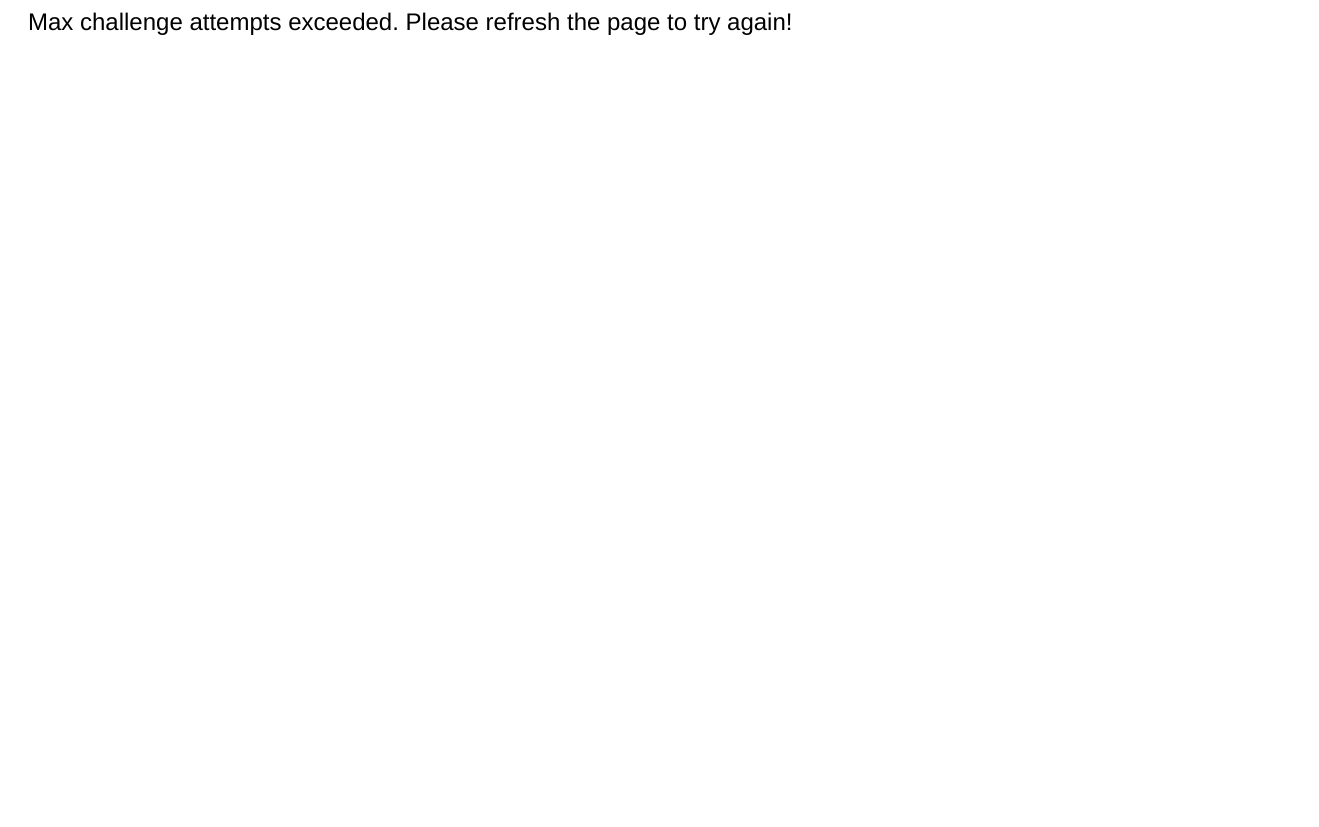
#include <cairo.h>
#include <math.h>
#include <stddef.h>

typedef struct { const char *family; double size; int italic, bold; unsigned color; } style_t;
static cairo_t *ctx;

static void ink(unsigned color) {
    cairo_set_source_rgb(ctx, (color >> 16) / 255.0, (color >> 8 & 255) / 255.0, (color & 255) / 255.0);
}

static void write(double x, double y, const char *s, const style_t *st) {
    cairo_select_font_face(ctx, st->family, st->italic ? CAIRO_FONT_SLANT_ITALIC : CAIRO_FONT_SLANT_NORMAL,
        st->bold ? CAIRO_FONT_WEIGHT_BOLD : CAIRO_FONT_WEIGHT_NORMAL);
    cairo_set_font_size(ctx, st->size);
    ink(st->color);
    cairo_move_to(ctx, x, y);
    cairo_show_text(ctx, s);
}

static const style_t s1 = {"Liberation Sans", 24, 0, 0, 0x000000};

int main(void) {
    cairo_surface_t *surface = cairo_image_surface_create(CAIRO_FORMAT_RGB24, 1319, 827);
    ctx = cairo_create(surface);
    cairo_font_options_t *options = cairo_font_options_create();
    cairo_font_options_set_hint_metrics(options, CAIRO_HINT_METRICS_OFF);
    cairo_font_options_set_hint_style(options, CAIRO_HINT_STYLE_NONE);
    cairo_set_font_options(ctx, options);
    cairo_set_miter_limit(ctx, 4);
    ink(0xffffff);
    cairo_paint(ctx);
    write(28, 30, "Max challenge attempts exceeded. Please refresh the page to try again!", &s1);
    cairo_surface_write_to_png(surface, "screenshot.png");
    cairo_font_options_destroy(options);
    cairo_destroy(ctx);
    cairo_surface_destroy(surface);
    return 0;
}
